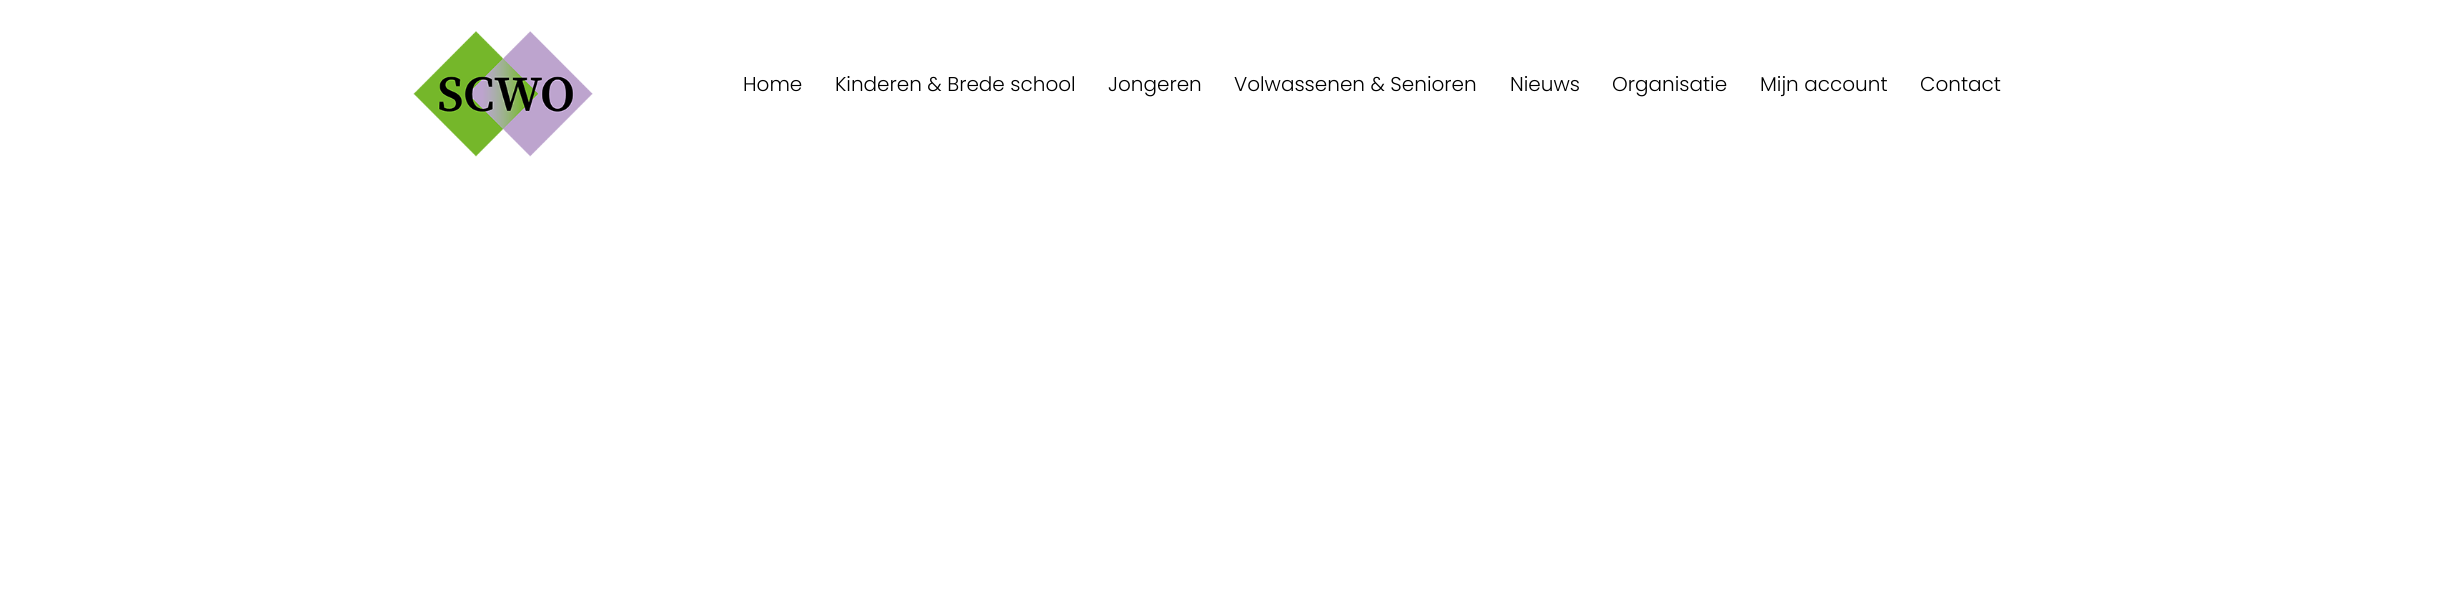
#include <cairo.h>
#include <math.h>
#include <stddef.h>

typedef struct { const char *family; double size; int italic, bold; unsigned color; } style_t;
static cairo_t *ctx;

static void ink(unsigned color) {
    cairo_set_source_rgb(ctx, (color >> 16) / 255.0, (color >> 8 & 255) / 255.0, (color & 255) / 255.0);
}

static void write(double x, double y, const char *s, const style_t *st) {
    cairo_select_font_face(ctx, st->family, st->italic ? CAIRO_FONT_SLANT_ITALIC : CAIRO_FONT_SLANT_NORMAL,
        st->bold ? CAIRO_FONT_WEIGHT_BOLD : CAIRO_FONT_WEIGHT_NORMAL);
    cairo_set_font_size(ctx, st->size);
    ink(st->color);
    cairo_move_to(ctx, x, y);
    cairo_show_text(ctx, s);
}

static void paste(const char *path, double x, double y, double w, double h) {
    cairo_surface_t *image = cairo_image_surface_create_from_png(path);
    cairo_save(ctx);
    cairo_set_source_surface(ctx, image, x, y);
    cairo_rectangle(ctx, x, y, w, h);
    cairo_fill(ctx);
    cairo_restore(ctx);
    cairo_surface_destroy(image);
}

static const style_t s1 = {"Poppins Light", 20, 0, 0, 0x000000};

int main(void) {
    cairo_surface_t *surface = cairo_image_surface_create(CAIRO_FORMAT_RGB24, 2446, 601);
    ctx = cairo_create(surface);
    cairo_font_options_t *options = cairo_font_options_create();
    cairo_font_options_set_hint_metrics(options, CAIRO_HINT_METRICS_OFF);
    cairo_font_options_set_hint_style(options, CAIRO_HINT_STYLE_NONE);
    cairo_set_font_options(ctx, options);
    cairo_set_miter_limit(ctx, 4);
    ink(0xffffff);
    cairo_paint(ctx);
    paste("pic1.png", 413, 31, 180, 126);
    write(743, 91, "Home", &s1);
    write(835, 91, "Kinderen & Brede school", &s1);
    write(1108, 91, "Jongeren", &s1);
    write(1234, 91, "Volwassenen & Senioren", &s1);
    write(1510, 91, "Nieuws", &s1);
    write(1612, 91, "Organisatie", &s1);
    write(1760, 91, "Mijn account", &s1);
    write(1920, 91, "Contact", &s1);
    cairo_surface_write_to_png(surface, "screenshot.png");
    cairo_font_options_destroy(options);
    cairo_destroy(ctx);
    cairo_surface_destroy(surface);
    return 0;
}
